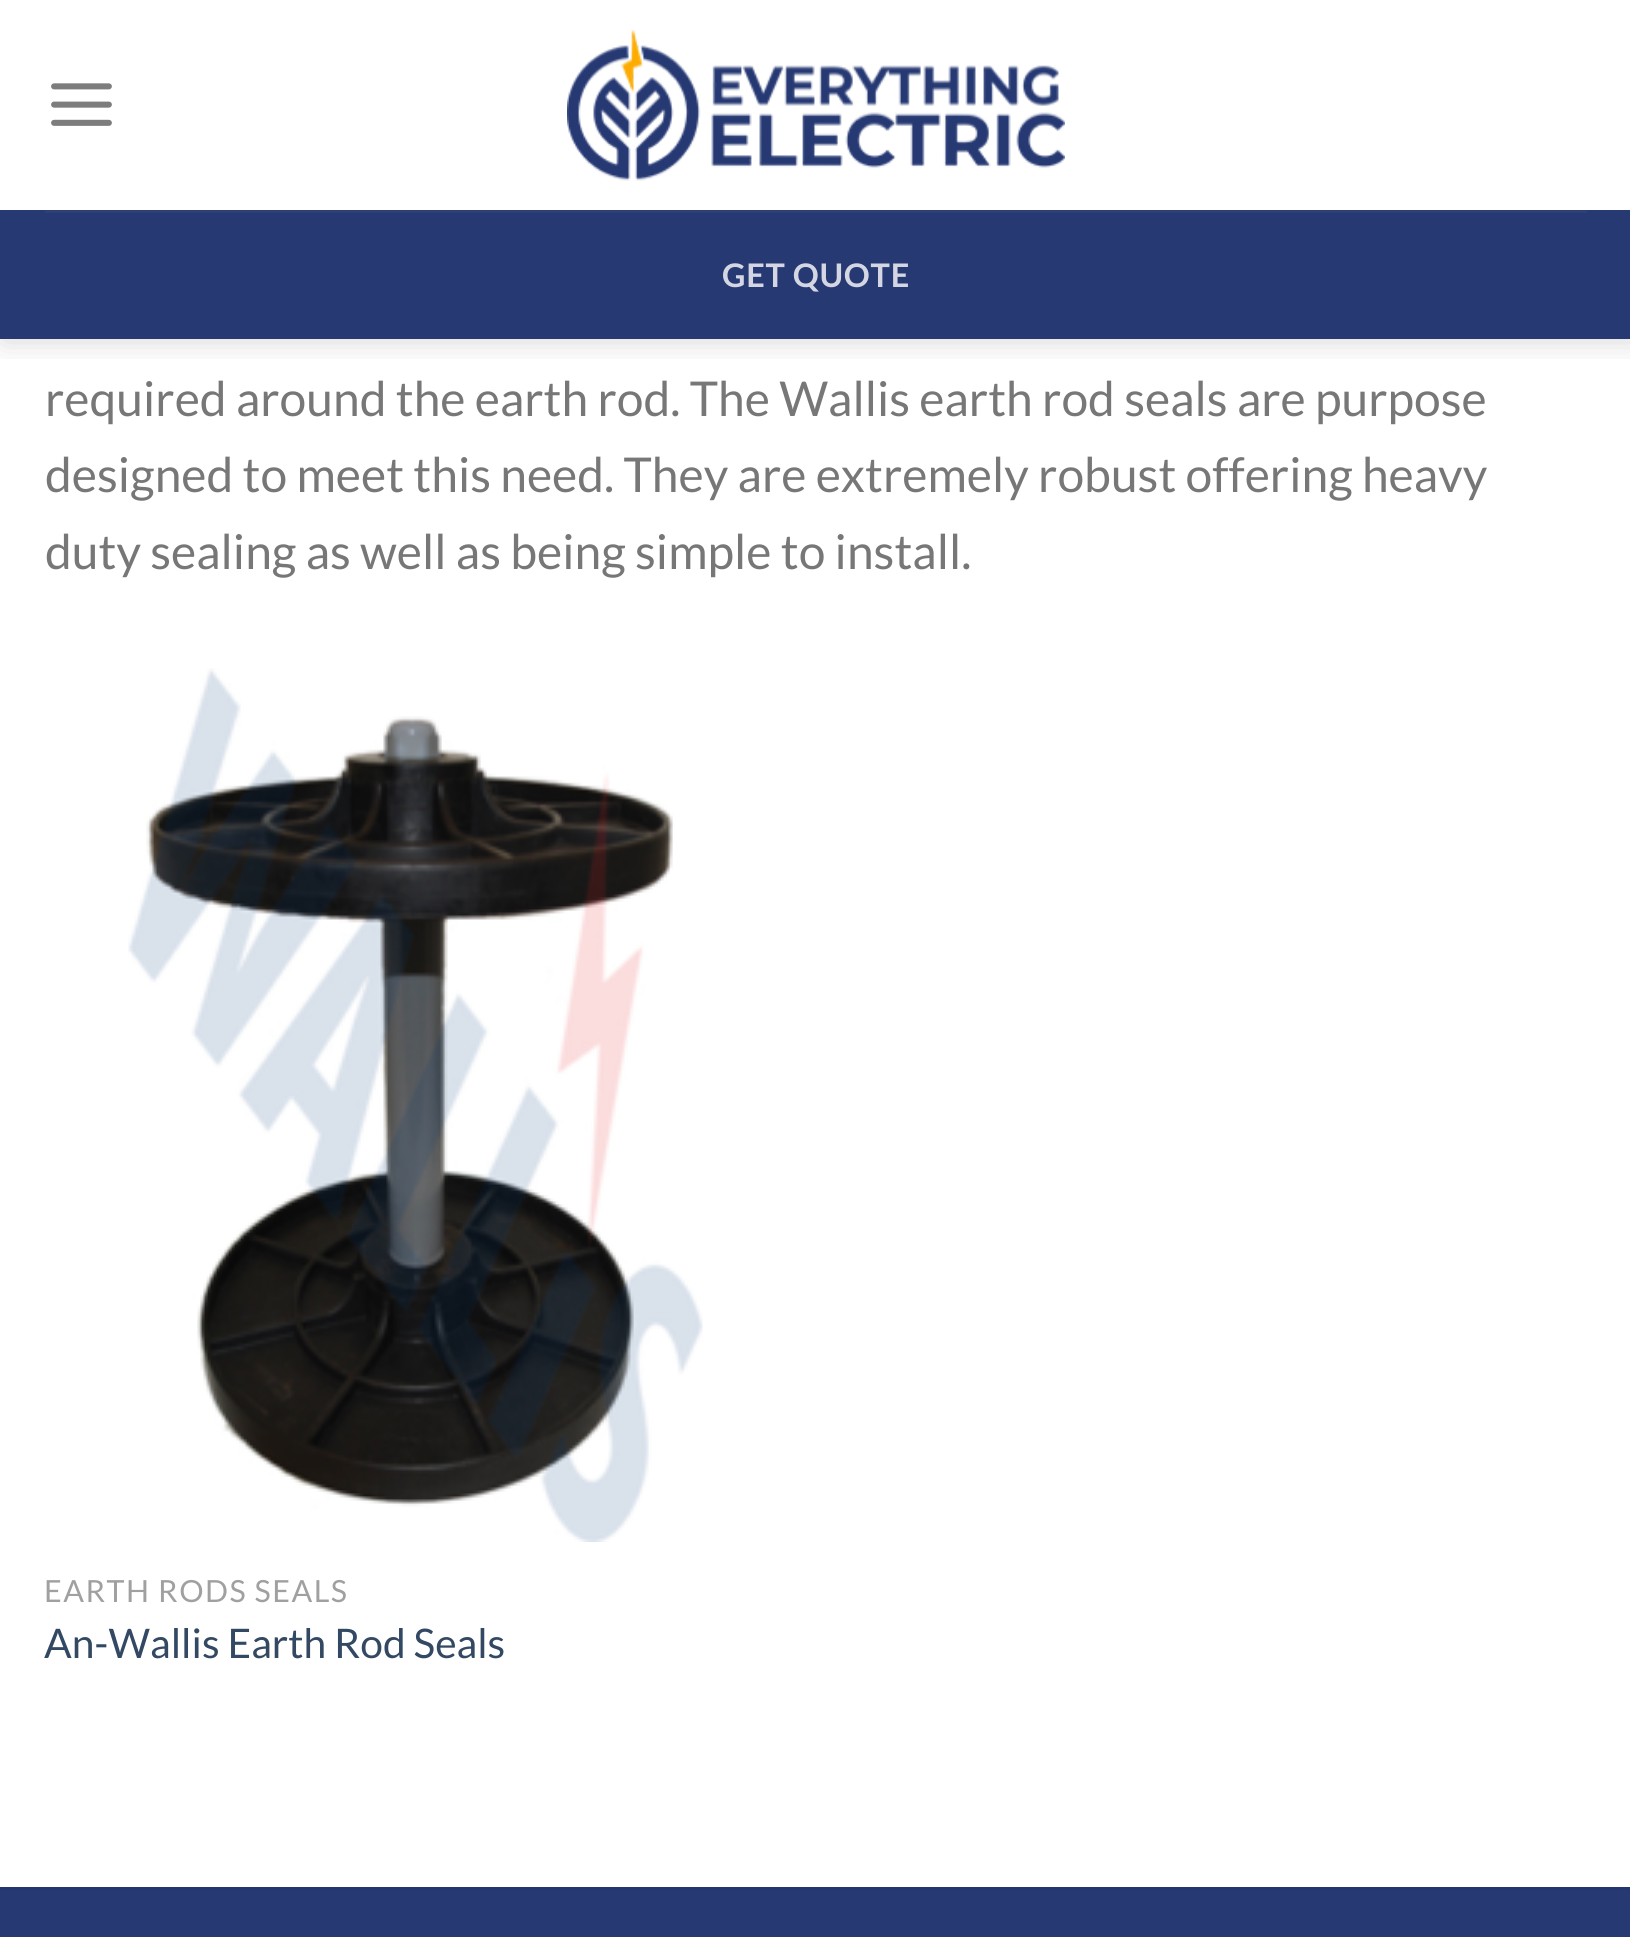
#include <cairo.h>
#include <math.h>
#include <stddef.h>

typedef struct { const char *family; double size; int italic, bold; unsigned color; } style_t;
static cairo_t *ctx;

static void ink(unsigned color) {
    cairo_set_source_rgb(ctx, (color >> 16) / 255.0, (color >> 8 & 255) / 255.0, (color & 255) / 255.0);
}

static void write(double x, double y, const char *s, const style_t *st) {
    cairo_select_font_face(ctx, st->family, st->italic ? CAIRO_FONT_SLANT_ITALIC : CAIRO_FONT_SLANT_NORMAL,
        st->bold ? CAIRO_FONT_WEIGHT_BOLD : CAIRO_FONT_WEIGHT_NORMAL);
    cairo_set_font_size(ctx, st->size);
    ink(st->color);
    cairo_move_to(ctx, x, y);
    cairo_show_text(ctx, s);
}

static void write_spaced(double x, double y, const char *s, double letter, double word) {
    cairo_move_to(ctx, x, y);
    while (*s) {
        char ch[5] = {0};
        int n = 0;
        do ch[n++] = *s++; while ((*s & 0xC0) == 0x80);
        cairo_show_text(ctx, ch);
        cairo_rel_move_to(ctx, letter + word * (*ch == ' '), 0);
    }
}

static void block(double x, double y, double w, double h, unsigned color) {
    ink(color);
    cairo_rectangle(ctx, x, y, w, h);
    cairo_fill(ctx);
}

static void round_path(double x, double y, double w, double h, double r) {
    cairo_new_sub_path(ctx);
    cairo_arc(ctx, x + w - r, y + h - r, r, 0, M_PI / 2);
    cairo_arc(ctx, x + r, y + h - r, r, M_PI / 2, M_PI);
    cairo_arc(ctx, x + r, y + r, r, M_PI, 1.5 * M_PI);
    cairo_arc(ctx, x + w - r, y + r, r, 1.5 * M_PI, 2 * M_PI);
    cairo_close_path(ctx);
}

static void blur_box(double x, double y, double w, double h, double r, double blur, double alpha) {
    cairo_push_group_with_content(ctx, CAIRO_CONTENT_ALPHA);
    cairo_set_operator(ctx, CAIRO_OPERATOR_SOURCE);
    for (int i = 15; i >= -15 && fmin(w, h) + blur * i / 3 > 0; i -= 2) {
        double e = blur * i / 6;
        cairo_set_source_rgba(ctx, 0, 0, 0, alpha * erfc((i - 1) / 8.5) / 2);
        round_path(x - e, y - e, w + 2 * e, h + 2 * e, fmax(0, fmin(r + e + blur * .6, fmin(w, h) / 2 + e)));
        cairo_fill(ctx);
    }
    cairo_pattern_t *soft = cairo_pop_group(ctx);
    cairo_mask(ctx, soft);
    cairo_pattern_destroy(soft);
}

static void paste(const char *path, double x, double y, double w, double h) {
    cairo_surface_t *image = cairo_image_surface_create_from_png(path);
    cairo_save(ctx);
    cairo_set_source_surface(ctx, image, x, y);
    cairo_rectangle(ctx, x, y, w, h);
    cairo_fill(ctx);
    cairo_restore(ctx);
    cairo_surface_destroy(image);
}

static const style_t s1 = {"Lato", 48, 0, 0, 0x777777};
static const style_t s2 = {"Lato", 40.75, 0, 0, 0x334862};

int main(void) {
    cairo_surface_t *surface = cairo_image_surface_create(CAIRO_FORMAT_RGB24, 1630, 1937);
    ctx = cairo_create(surface);
    cairo_font_options_t *options = cairo_font_options_create();
    cairo_font_options_set_hint_metrics(options, CAIRO_HINT_METRICS_OFF);
    cairo_font_options_set_hint_style(options, CAIRO_HINT_STYLE_NONE);
    cairo_set_font_options(ctx, options);
    cairo_set_miter_limit(ctx, 4);
    ink(0xffffff);
    cairo_paint(ctx);
    cairo_save(ctx);
    cairo_rectangle(ctx, 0, 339, 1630, 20);
    cairo_clip(ctx);
    ink(0x000000);
    blur_box(3, 3, 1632, 339, 0, 15, 0.15);
    cairo_restore(ctx);
    paste("pic1.png", 51, 83, 61, 43);
    paste("pic2.png", 567, 21, 498, 160);
    block(0, 210, 1630, 129, 0x263973);
    block(45, 210, 1542, 3, 0x2e3f73);
    cairo_select_font_face(ctx, "Lato", CAIRO_FONT_SLANT_NORMAL, CAIRO_FONT_WEIGHT_BOLD);
    cairo_set_font_size(ctx, 32.5);
    ink(0xd4d7e3);
    write_spaced(722, 287, "GET QUOTE", 0.75, 0);
    write(45, 416, "required around the earth rod. The Wallis earth rod seals are purpose", &s1);
    write(45, 492, "designed to meet this need. They are extremely robust offering heavy", &s1);
    write(45, 569, "duty sealing as well as being simple to install.", &s1);
    paste("pic3.png", 128, 668, 575, 874);
    cairo_set_font_size(ctx, 30.5);
    ink(0xa0a0a0);
    write_spaced(44, 1602, "EARTH RODS SEALS", 1.5, 0);
    write(44, 1658, "An-Wallis Earth Rod Seals", &s2);
    block(0, 1890, 1630, 47, 0x263973);
    block(0, 1887, 1630, 3, 0x24366d);
    cairo_surface_write_to_png(surface, "screenshot.png");
    cairo_font_options_destroy(options);
    cairo_destroy(ctx);
    cairo_surface_destroy(surface);
    return 0;
}
